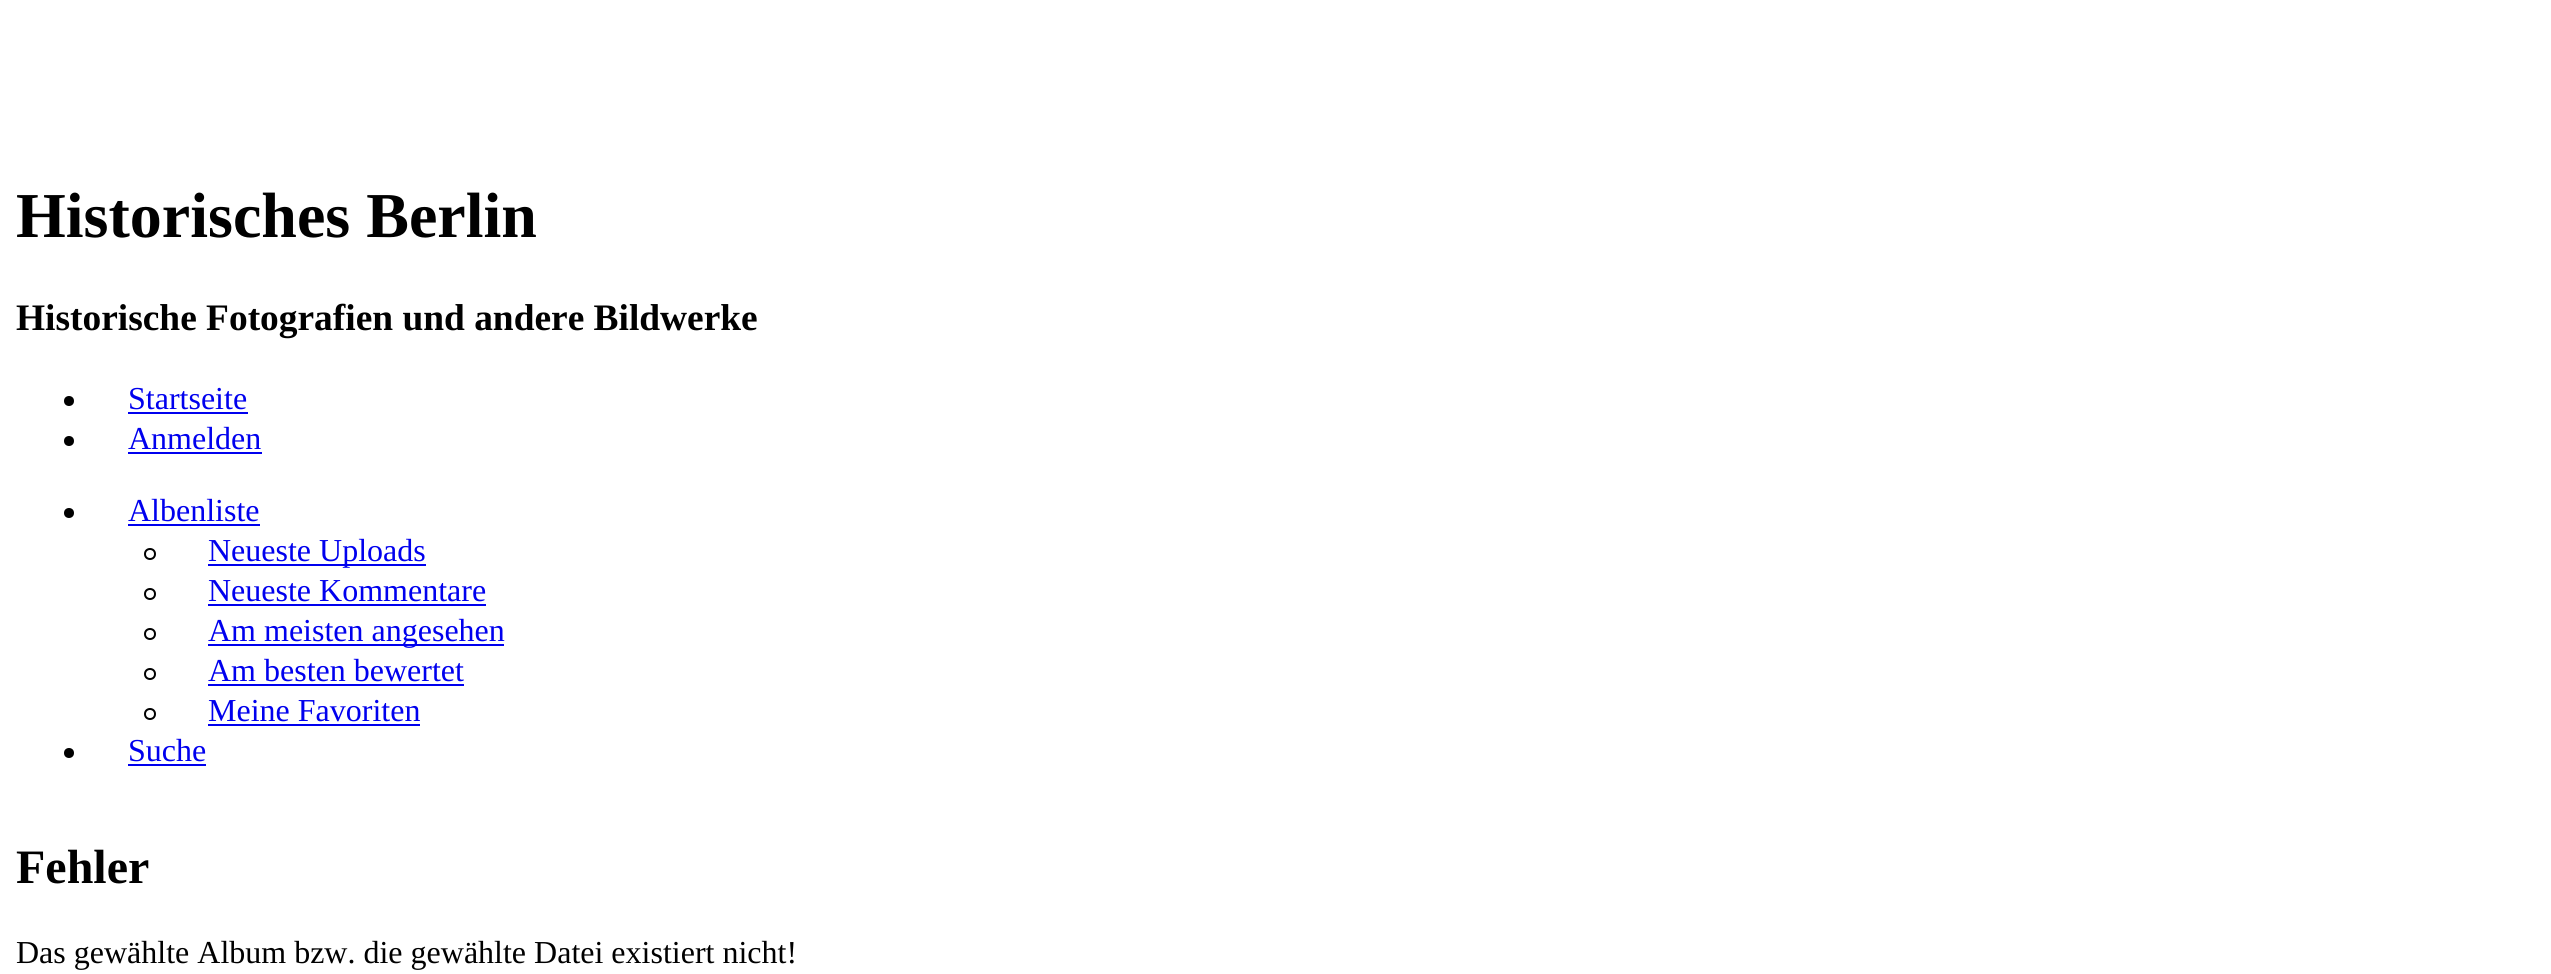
#include <cairo.h>
#include <math.h>
#include <stddef.h>

typedef struct { const char *family; double size; int italic, bold; unsigned color; } style_t;
static cairo_t *ctx;

static void ink(unsigned color) {
    cairo_set_source_rgb(ctx, (color >> 16) / 255.0, (color >> 8 & 255) / 255.0, (color & 255) / 255.0);
}

static void write(double x, double y, const char *s, const style_t *st) {
    cairo_select_font_face(ctx, st->family, st->italic ? CAIRO_FONT_SLANT_ITALIC : CAIRO_FONT_SLANT_NORMAL,
        st->bold ? CAIRO_FONT_WEIGHT_BOLD : CAIRO_FONT_WEIGHT_NORMAL);
    cairo_set_font_size(ctx, st->size);
    ink(st->color);
    cairo_move_to(ctx, x, y);
    cairo_show_text(ctx, s);
}

static void block(double x, double y, double w, double h, unsigned color) {
    ink(color);
    cairo_rectangle(ctx, x, y, w, h);
    cairo_fill(ctx);
}

static const style_t s1 = {"Liberation Serif", 64, 0, 1, 0x000000};
static const style_t s2 = {"Liberation Serif", 37.4, 0, 1, 0x000000};
static const style_t s3 = {"Liberation Serif", 32, 0, 0, 0x0000ee};
static const style_t s4 = {"Liberation Serif", 48, 0, 1, 0x000000};
static const style_t s5 = {"Liberation Serif", 32, 0, 0, 0x000000};

int main(void) {
    cairo_surface_t *surface = cairo_image_surface_create(CAIRO_FORMAT_RGB24, 2551, 974);
    ctx = cairo_create(surface);
    cairo_font_options_t *options = cairo_font_options_create();
    cairo_font_options_set_hint_metrics(options, CAIRO_HINT_METRICS_OFF);
    cairo_font_options_set_hint_style(options, CAIRO_HINT_STYLE_NONE);
    cairo_set_font_options(ctx, options);
    cairo_set_miter_limit(ctx, 4);
    ink(0xffffff);
    cairo_paint(ctx);
    write(16, 237, "Historisches Berlin", &s1);
    write(16, 330, "Historische Fotografien und andere Bildwerke", &s2);
    cairo_new_path(ctx);
    cairo_arc(ctx, 69, 401, 5, 0, 2 * M_PI);
    cairo_fill(ctx);
    write(128, 409, "Startseite", &s3);
    block(128, 412, 120, 2, 0x0000ee);
    ink(0x000000);
    cairo_new_path(ctx);
    cairo_arc(ctx, 69, 441, 5, 0, 2 * M_PI);
    cairo_fill(ctx);
    write(128, 449, "Anmelden", &s3);
    block(128, 452, 134, 2, 0x0000ee);
    ink(0x000000);
    cairo_new_path(ctx);
    cairo_arc(ctx, 69, 513, 5, 0, 2 * M_PI);
    cairo_fill(ctx);
    write(128, 521, "Albenliste", &s3);
    block(128, 524, 132, 2, 0x0000ee);
    cairo_new_path(ctx);
    cairo_arc(ctx, 150, 554, 5, 0, 2 * M_PI);
    ink(0x000000);
    cairo_stroke(ctx);
    block(208, 564, 218, 2, 0x0000ee);
    write(208, 561, "Neueste Uploads", &s3);
    cairo_new_path(ctx);
    cairo_arc(ctx, 150, 594, 5, 0, 2 * M_PI);
    ink(0x000000);
    cairo_stroke(ctx);
    write(208, 601, "Neueste Kommentare", &s3);
    block(208, 604, 278, 2, 0x0000ee);
    cairo_new_path(ctx);
    cairo_arc(ctx, 150, 634, 5, 0, 2 * M_PI);
    ink(0x000000);
    cairo_stroke(ctx);
    block(208, 644, 296, 2, 0x0000ee);
    write(208, 641, "Am meisten angesehen", &s3);
    cairo_new_path(ctx);
    cairo_arc(ctx, 150, 674, 5, 0, 2 * M_PI);
    ink(0x000000);
    cairo_stroke(ctx);
    write(208, 681, "Am besten bewertet", &s3);
    block(208, 684, 256, 2, 0x0000ee);
    cairo_new_path(ctx);
    cairo_arc(ctx, 150, 714, 5, 0, 2 * M_PI);
    ink(0x000000);
    cairo_stroke(ctx);
    write(208, 721, "Meine Favoriten", &s3);
    block(208, 724, 212, 2, 0x0000ee);
    ink(0x000000);
    cairo_new_path(ctx);
    cairo_arc(ctx, 69, 753, 5, 0, 2 * M_PI);
    cairo_fill(ctx);
    write(128, 761, "Suche", &s3);
    block(128, 764, 78, 2, 0x0000ee);
    write(16, 883, "Fehler", &s4);
    write(16, 963, "Das gewählte Album bzw. die gewählte Datei existiert nicht!", &s5);
    cairo_surface_write_to_png(surface, "screenshot.png");
    cairo_font_options_destroy(options);
    cairo_destroy(ctx);
    cairo_surface_destroy(surface);
    return 0;
}
